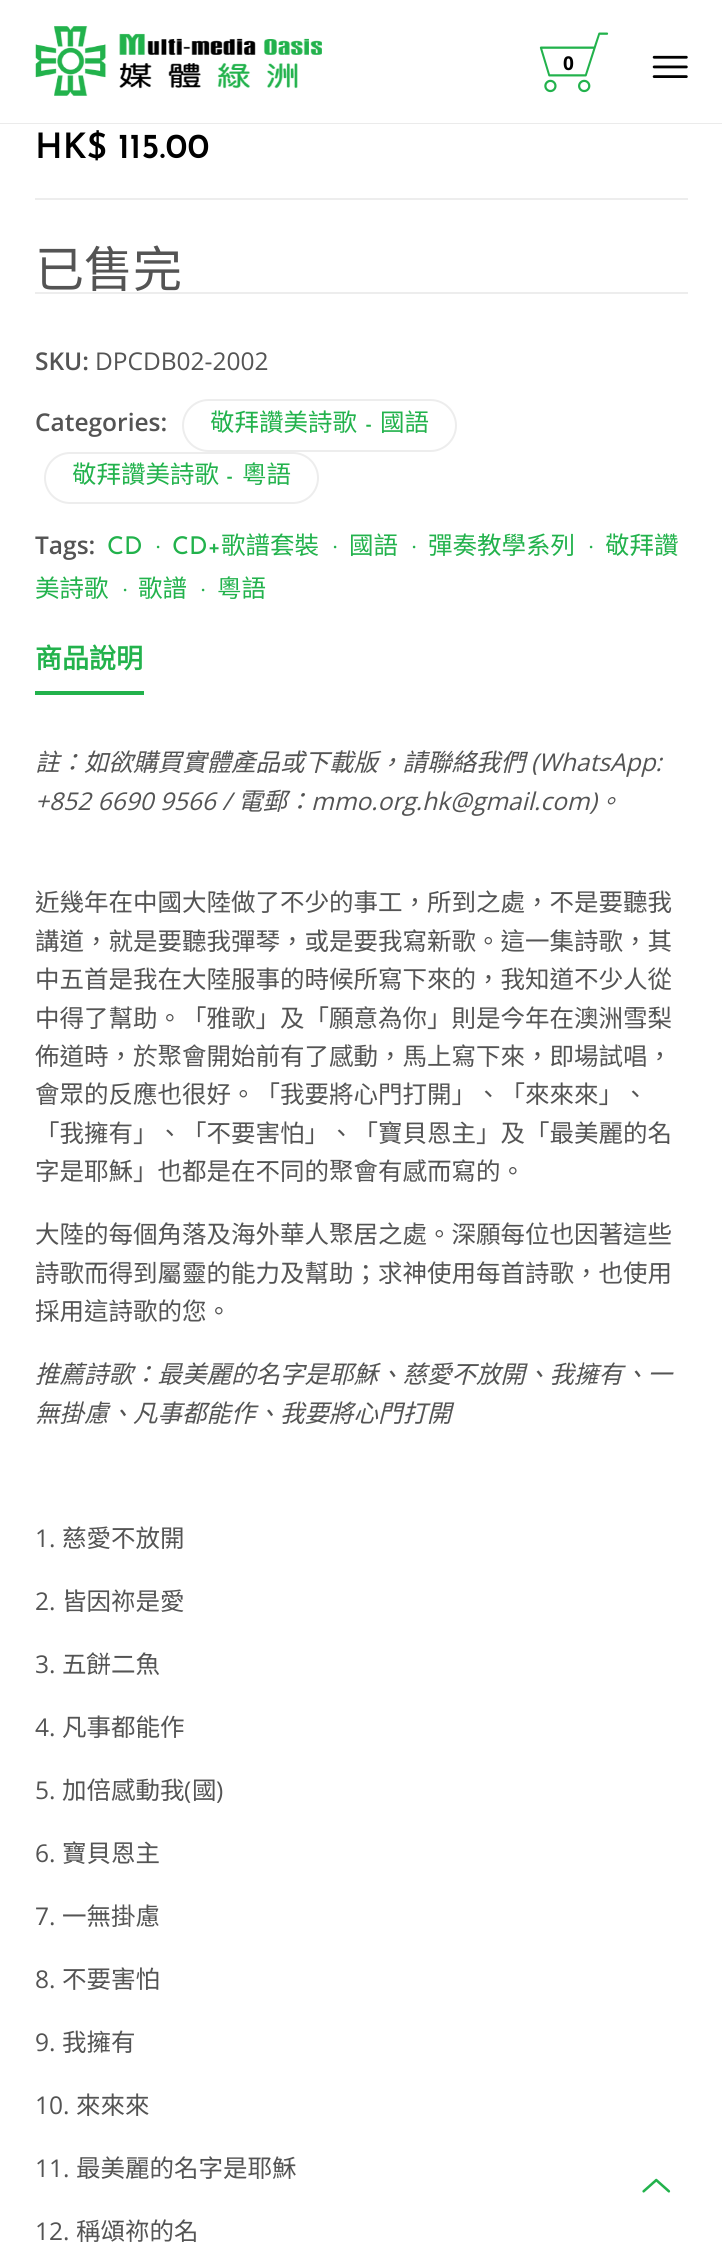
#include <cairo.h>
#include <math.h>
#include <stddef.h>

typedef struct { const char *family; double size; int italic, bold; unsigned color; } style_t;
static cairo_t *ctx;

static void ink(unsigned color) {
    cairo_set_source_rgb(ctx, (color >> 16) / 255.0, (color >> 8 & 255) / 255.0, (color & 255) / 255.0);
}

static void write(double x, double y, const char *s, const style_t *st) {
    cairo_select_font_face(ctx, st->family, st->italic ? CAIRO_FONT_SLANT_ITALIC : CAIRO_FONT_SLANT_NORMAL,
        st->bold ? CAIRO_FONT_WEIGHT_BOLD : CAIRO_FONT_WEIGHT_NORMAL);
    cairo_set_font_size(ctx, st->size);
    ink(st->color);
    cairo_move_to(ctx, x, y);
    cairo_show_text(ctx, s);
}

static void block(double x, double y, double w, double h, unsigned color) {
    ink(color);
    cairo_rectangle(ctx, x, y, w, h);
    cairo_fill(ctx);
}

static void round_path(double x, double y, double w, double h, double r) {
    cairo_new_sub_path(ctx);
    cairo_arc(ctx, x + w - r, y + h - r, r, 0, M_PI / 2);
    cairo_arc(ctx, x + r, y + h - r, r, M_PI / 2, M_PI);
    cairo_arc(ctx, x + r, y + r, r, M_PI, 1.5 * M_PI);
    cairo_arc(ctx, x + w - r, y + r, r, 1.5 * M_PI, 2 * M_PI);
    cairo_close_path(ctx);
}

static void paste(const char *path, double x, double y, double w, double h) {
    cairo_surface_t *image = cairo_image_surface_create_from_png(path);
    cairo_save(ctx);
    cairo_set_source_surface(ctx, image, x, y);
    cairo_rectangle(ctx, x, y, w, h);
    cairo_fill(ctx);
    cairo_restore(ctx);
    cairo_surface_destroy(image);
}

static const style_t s1 = {"Open Sans", 19, 0, 1, 0x000000};
static const style_t s2 = {"Josefin Sans SemiBold", 35, 0, 0, 0x000000};
static const style_t s3 = {"Noto Sans CJK HK", 49, 0, 0, 0x545454};
static const style_t s4 = {"Open Sans SemiBold", 24.5, 0, 0, 0x545454};
static const style_t s5 = {"Open Sans", 24.5, 0, 0, 0x545454};
static const style_t s6 = {"Noto Sans CJK HK", 24.5, 0, 0, 0x22b24c};
static const style_t s7 = {"Josefin Sans", 24.5, 0, 0, 0x22b24c};
static const style_t s8 = {"Noto Sans CJK HK", 27, 0, 1, 0x22b24c};
static const style_t s9 = {"Noto Sans CJK HK", 24.5, 1, 0, 0x545454};
static const style_t s10 = {"Open Sans", 24.5, 1, 0, 0x545454};
static const style_t s11 = {"Noto Sans CJK HK", 24.5, 0, 0, 0x545454};

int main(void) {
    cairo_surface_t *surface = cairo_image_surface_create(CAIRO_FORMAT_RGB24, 722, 2252);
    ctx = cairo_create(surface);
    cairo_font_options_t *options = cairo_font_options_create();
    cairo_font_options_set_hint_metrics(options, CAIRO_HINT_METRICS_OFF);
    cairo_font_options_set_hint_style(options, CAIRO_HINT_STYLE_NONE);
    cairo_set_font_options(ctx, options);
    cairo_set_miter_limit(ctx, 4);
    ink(0xffffff);
    cairo_paint(ctx);
    ink(0xebebeb);
    cairo_new_path(ctx);
    cairo_move_to(ctx, 0, 122);
    cairo_line_to(ctx, 0, 124);
    cairo_line_to(ctx, 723, 124);
    cairo_line_to(ctx, 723, 2);
    cairo_line_to(ctx, 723, 122);
    cairo_close_path(ctx);
    cairo_fill(ctx);
    block(0, 122, 722, 1, 0xffffff);
    paste("pic1.png", 35, 26, 287, 70);
    paste("pic2.png", 539, 32, 70, 61);
    write(563, 70, "0", &s1);
    paste("pic3.png", 652, 55, 36, 23);
    write(35, 158, "HK$ 115.00", &s2);
    block(35, 198, 653, 2, 0xededed);
    write(35, 287, "已售完", &s3);
    block(35, 292, 653, 2, 0xededed);
    write(35, 370, "SKU:", &s4);
    write(95, 370, "DPCDB02-2002", &s5);
    write(35, 431, "Categories:", &s4);
    round_path(183, 400, 273, 51, 25.5);
    ink(0xededed);
    cairo_stroke(ctx);
    write(210, 431, "敬拜讚美詩歌", &s6);
    write(365, 431, "-", &s7);
    write(380, 431, "國語", &s6);
    round_path(45, 453, 273, 50, 25);
    ink(0xededed);
    cairo_stroke(ctx);
    write(72, 483, "敬拜讚美詩歌", &s6);
    write(226, 483, "-", &s7);
    write(242, 483, "粵語", &s6);
    write(35, 554, "Tags:", &s4);
    write(107, 554, "CD", &s7);
    write(156, 554, "·", &s7);
    write(172, 554, "CD+", &s7);
    write(221, 554, "歌譜套裝", &s6);
    write(333, 554, "·", &s7);
    write(349, 554, "國語", &s6);
    write(412, 554, "·", &s7);
    write(428, 554, "彈奏教學系列", &s6);
    write(589, 554, "·", &s7);
    write(605, 554, "敬拜讚", &s6);
    write(35, 597, "美詩歌", &s6);
    write(123, 597, "·", &s7);
    write(138, 597, "歌譜", &s6);
    write(201, 597, "·", &s7);
    write(217, 597, "粵語", &s6);
    block(35, 691, 109, 4, 0x22b24c);
    write(35, 668, "商品說明", &s8);
    write(35, 771, "註：如欲購買實體產品或下載版，請聯絡我們", &s9);
    write(531, 771, "(WhatsApp:", &s10);
    write(35, 810, "+852 6690 9566 /", &s10);
    write(238, 810, "電郵：", &s9);
    write(311, 810, "mmo.org.hk@gmail.com)", &s10);
    write(597, 810, "。", &s9);
    write(35, 911, "近幾年在中國大陸做了不少的事工，所到之處，不是要聽我", &s11);
    write(35, 950, "講道，就是要聽我彈琴，或是要我寫新歌。這一集詩歌，其", &s11);
    write(35, 988, "中五首是我在大陸服事的時候所寫下來的，我知道不少人從", &s11);
    write(35, 1027, "中得了幫助。「雅歌」及「願意為你」則是今年在澳洲雪梨", &s11);
    write(35, 1065, "佈道時，於聚會開始前有了感動，馬上寫下來，即場試唱，", &s11);
    write(35, 1103, "會眾的反應也很好。「我要將心門打開」、「來來來」、", &s11);
    write(35, 1142, "「我擁有」、「不要害怕」、「寶貝恩主」及「最美麗的名", &s11);
    write(35, 1180, "字是耶穌」也都是在不同的聚會有感而寫的。", &s11);
    write(35, 1243, "大陸的每個角落及海外華人聚居之處。深願每位也因著這些", &s11);
    write(35, 1282, "詩歌而得到屬靈的能力及幫助；求神使用每首詩歌，也使用", &s11);
    write(35, 1320, "採用這詩歌的您。", &s11);
    write(35, 1383, "推薦詩歌：最美麗的名字是耶穌、慈愛不放開、我擁有、一", &s9);
    write(35, 1422, "無掛慮、凡事都能作、我要將心門打開", &s9);
    write(35, 1547, "1.", &s5);
    write(62, 1547, "慈愛不放開", &s11);
    write(35, 1610, "2.", &s5);
    write(62, 1610, "皆因祢是愛", &s11);
    write(35, 1673, "3.", &s5);
    write(62, 1673, "五餅二魚", &s11);
    write(35, 1736, "4.", &s5);
    write(62, 1736, "凡事都能作", &s11);
    write(35, 1799, "5.", &s5);
    write(62, 1799, "加倍感動我", &s11);
    write(184, 1799, "(", &s5);
    write(192, 1799, "國", &s11);
    write(216, 1799, ")", &s5);
    write(35, 1862, "6.", &s5);
    write(62, 1862, "寶貝恩主", &s11);
    write(35, 1925, "7.", &s5);
    write(62, 1925, "一無掛慮", &s11);
    write(35, 1988, "8.", &s5);
    write(62, 1988, "不要害怕", &s11);
    write(35, 2051, "9.", &s5);
    write(62, 2051, "我擁有", &s11);
    write(35, 2114, "10.", &s5);
    write(76, 2114, "來來來", &s11);
    write(35, 2177, "11.", &s5);
    write(76, 2177, "最美麗的名字是耶穌", &s11);
    write(35, 2240, "12.", &s5);
    write(76, 2240, "稱頌祢的名", &s11);
    paste("pic4.png", 642, 2178, 29, 15);
    cairo_surface_write_to_png(surface, "screenshot.png");
    cairo_font_options_destroy(options);
    cairo_destroy(ctx);
    cairo_surface_destroy(surface);
    return 0;
}
